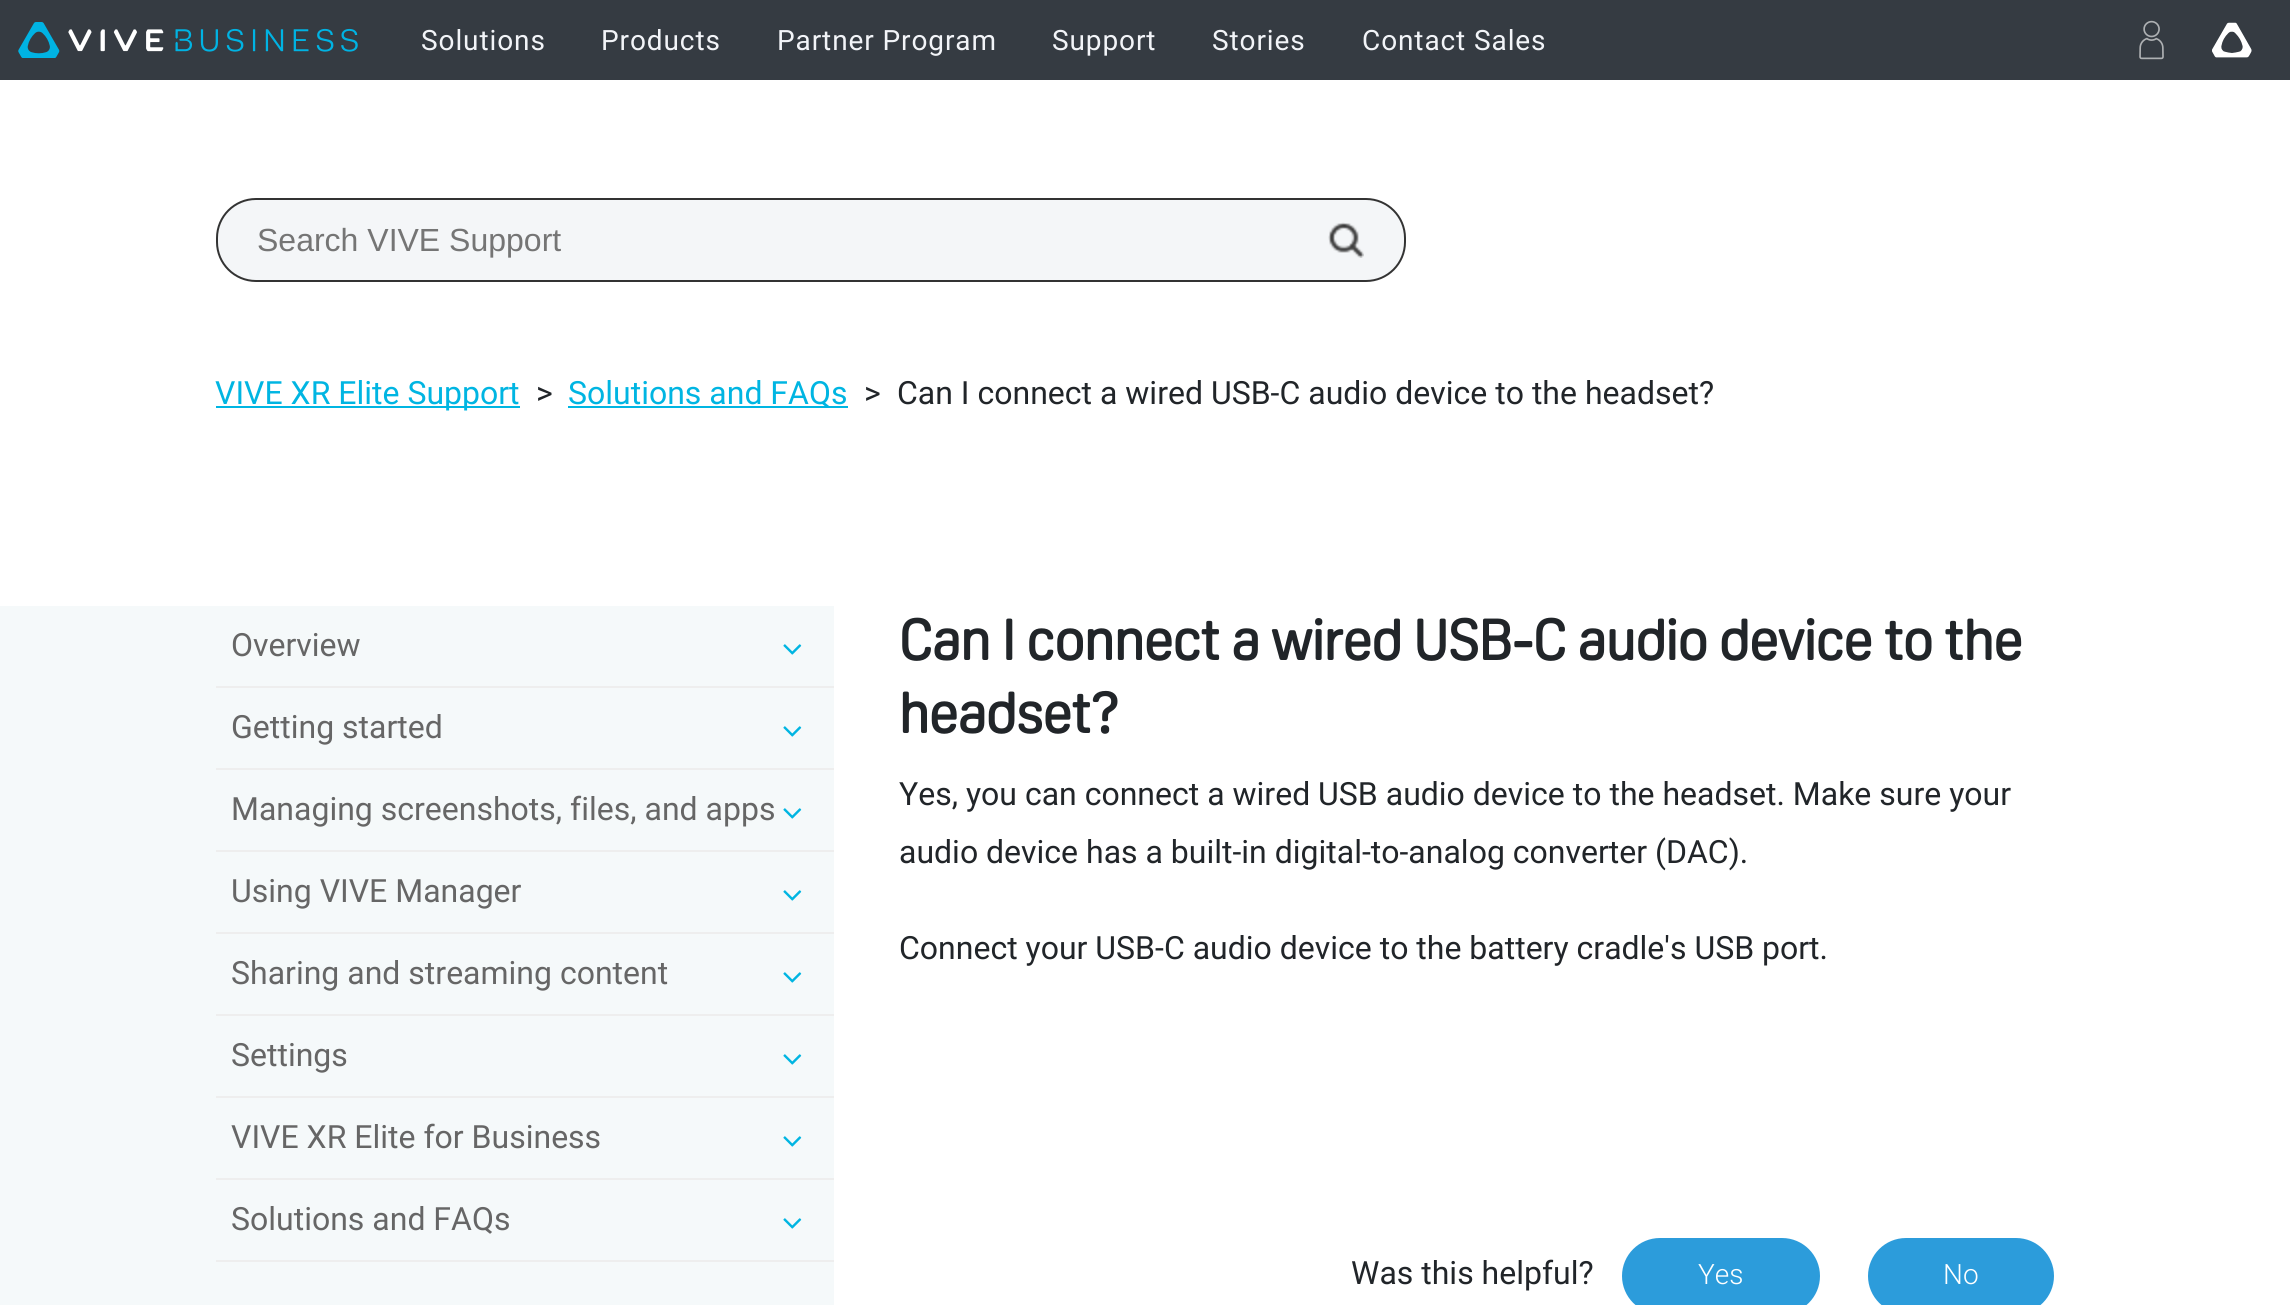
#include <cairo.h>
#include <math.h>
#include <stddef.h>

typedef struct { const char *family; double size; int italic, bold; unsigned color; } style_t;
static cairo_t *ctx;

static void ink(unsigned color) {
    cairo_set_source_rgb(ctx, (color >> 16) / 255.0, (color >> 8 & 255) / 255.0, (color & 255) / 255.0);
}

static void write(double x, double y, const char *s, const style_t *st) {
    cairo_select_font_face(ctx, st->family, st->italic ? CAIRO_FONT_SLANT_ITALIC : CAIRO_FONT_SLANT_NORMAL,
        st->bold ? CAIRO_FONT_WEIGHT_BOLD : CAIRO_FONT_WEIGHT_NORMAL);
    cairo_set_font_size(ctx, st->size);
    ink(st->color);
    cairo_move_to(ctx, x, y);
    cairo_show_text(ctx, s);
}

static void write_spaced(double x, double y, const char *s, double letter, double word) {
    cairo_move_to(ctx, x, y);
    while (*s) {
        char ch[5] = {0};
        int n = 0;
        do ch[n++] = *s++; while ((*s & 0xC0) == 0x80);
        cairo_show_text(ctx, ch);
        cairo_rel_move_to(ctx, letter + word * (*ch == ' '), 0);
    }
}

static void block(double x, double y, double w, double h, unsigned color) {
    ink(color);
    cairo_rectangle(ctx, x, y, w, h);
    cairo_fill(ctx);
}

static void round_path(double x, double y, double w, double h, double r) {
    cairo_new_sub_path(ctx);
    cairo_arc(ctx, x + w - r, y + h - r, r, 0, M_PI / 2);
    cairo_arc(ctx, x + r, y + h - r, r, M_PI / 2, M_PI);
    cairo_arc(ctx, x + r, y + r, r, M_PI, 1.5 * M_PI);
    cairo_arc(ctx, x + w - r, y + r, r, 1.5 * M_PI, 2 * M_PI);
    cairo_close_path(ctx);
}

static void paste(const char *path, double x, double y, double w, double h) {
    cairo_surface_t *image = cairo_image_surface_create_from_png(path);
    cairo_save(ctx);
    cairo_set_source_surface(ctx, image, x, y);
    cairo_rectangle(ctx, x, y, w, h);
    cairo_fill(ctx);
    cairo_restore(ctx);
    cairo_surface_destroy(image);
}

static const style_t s1 = {"Liberation Sans", 32, 0, 0, 0x757575};
static const style_t s2 = {"Roboto", 32, 0, 0, 0x00b5e2};
static const style_t s3 = {"Roboto", 32, 0, 0, 0x212529};
static const style_t s4 = {"Roboto", 32, 0, 0, 0x666666};
static const style_t s5 = {"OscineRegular", 56, 0, 1, 0x212529};
static const style_t s6 = {"Roboto Light", 28, 0, 0, 0xffffff};

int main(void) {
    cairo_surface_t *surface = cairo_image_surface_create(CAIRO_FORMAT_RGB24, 2290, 1305);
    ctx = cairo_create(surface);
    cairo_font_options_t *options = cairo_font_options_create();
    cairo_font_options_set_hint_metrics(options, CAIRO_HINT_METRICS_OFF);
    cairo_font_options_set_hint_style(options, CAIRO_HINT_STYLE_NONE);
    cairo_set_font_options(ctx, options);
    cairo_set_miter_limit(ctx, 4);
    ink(0xffffff);
    cairo_paint(ctx);
    block(0, 0, 2290, 80, 0x353b42);
    paste("pic1.png", 18, 22, 340, 36);
    cairo_select_font_face(ctx, "Roboto", CAIRO_FONT_SLANT_NORMAL, CAIRO_FONT_WEIGHT_NORMAL);
    cairo_set_font_size(ctx, 28);
    ink(0xf2f4f8);
    write_spaced(421, 50, "Solutions", 0.9, 0);
    write_spaced(601, 50, "Products", 0.9, 0);
    write_spaced(777, 50, "Partner Program", 0.9, 0);
    write_spaced(1052, 50, "Support", 0.9, 0);
    write_spaced(1212, 50, "Stories", 0.9, 0);
    write_spaced(1362, 50, "Contact Sales", 0.9, 0);
    paste("pic2.png", 2139, 20, 25, 40);
    paste("pic3.png", 2212, 22, 40, 36);
    ink(0xf4f6f8);
    round_path(217, 199, 1188, 82, 39);
    cairo_fill_preserve(ctx);
    ink(0x333333);
    cairo_stroke(ctx);
    write(257, 251, "Search VIVE Support", &s1);
    paste("pic4.png", 1328, 222, 36, 36);
    block(216, 406, 304, 2, 0x00b5e2);
    write(215, 404, "VIVE XR Elite Support", &s2);
    write(536, 404, ">", &s3);
    block(568, 406, 280, 2, 0x00b5e2);
    write(568, 404, "Solutions and FAQs", &s2);
    write(864, 404, ">", &s3);
    write(897, 404, "Can I connect a wired USB-C audio device to the headset?", &s3);
    block(0, 606, 834, 699, 0xf5f9fa);
    block(216, 686, 618, 2, 0xeeeeee);
    write(231, 656, "Overview", &s4);
    paste("pic5.png", 783, 644, 19, 11);
    block(216, 768, 618, 2, 0xeeeeee);
    write(231, 738, "Getting started", &s4);
    paste("pic5.png", 783, 726, 19, 11);
    block(216, 850, 618, 2, 0xeeeeee);
    write(231, 820, "Managing screenshots, files, and apps", &s4);
    paste("pic5.png", 783, 808, 19, 11);
    block(216, 932, 618, 2, 0xeeeeee);
    write(231, 902, "Using VIVE Manager", &s4);
    paste("pic5.png", 783, 890, 19, 11);
    block(216, 1014, 618, 2, 0xeeeeee);
    write(231, 984, "Sharing and streaming content", &s4);
    paste("pic5.png", 783, 972, 19, 11);
    block(216, 1096, 618, 2, 0xeeeeee);
    write(231, 1066, "Settings", &s4);
    paste("pic5.png", 783, 1054, 19, 11);
    block(216, 1178, 618, 2, 0xeeeeee);
    write(231, 1148, "VIVE XR Elite for Business", &s4);
    paste("pic5.png", 783, 1136, 19, 11);
    block(216, 1260, 618, 2, 0xeeeeee);
    write(231, 1230, "Solutions and FAQs", &s4);
    paste("pic5.png", 783, 1218, 19, 11);
    write(899, 660, "Can I connect a wired USB-C audio device to the", &s5);
    write(899, 733, "headset?", &s5);
    write(899, 805, "Yes, you can connect a wired USB audio device to the headset. Make sure your", &s3);
    write(899, 863, "audio device has a built-in digital-to-analog converter (DAC).", &s3);
    write(899, 959, "Connect your USB-C audio device to the battery cradle's USB port.", &s3);
    write(1351, 1284, "Was this helpful?", &s3);
    ink(0x2c9cdb);
    round_path(1623, 1239, 196, 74, 37);
    cairo_fill_preserve(ctx);
    cairo_stroke(ctx);
    write(1698, 1284, "Yes", &s6);
    ink(0x2c9cdb);
    round_path(1869, 1239, 184, 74, 37);
    cairo_fill_preserve(ctx);
    cairo_stroke(ctx);
    write(1943, 1284, "No", &s6);
    cairo_surface_write_to_png(surface, "screenshot.png");
    cairo_font_options_destroy(options);
    cairo_destroy(ctx);
    cairo_surface_destroy(surface);
    return 0;
}
